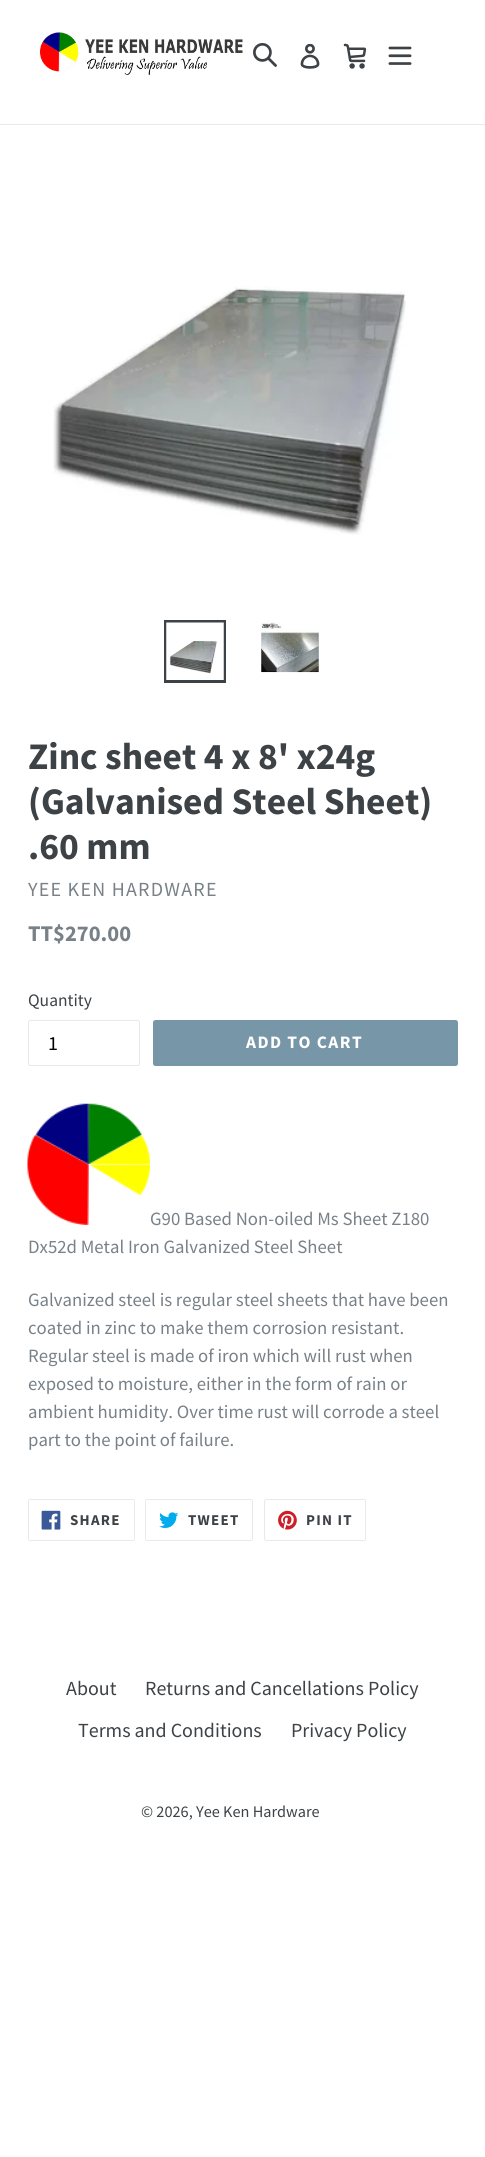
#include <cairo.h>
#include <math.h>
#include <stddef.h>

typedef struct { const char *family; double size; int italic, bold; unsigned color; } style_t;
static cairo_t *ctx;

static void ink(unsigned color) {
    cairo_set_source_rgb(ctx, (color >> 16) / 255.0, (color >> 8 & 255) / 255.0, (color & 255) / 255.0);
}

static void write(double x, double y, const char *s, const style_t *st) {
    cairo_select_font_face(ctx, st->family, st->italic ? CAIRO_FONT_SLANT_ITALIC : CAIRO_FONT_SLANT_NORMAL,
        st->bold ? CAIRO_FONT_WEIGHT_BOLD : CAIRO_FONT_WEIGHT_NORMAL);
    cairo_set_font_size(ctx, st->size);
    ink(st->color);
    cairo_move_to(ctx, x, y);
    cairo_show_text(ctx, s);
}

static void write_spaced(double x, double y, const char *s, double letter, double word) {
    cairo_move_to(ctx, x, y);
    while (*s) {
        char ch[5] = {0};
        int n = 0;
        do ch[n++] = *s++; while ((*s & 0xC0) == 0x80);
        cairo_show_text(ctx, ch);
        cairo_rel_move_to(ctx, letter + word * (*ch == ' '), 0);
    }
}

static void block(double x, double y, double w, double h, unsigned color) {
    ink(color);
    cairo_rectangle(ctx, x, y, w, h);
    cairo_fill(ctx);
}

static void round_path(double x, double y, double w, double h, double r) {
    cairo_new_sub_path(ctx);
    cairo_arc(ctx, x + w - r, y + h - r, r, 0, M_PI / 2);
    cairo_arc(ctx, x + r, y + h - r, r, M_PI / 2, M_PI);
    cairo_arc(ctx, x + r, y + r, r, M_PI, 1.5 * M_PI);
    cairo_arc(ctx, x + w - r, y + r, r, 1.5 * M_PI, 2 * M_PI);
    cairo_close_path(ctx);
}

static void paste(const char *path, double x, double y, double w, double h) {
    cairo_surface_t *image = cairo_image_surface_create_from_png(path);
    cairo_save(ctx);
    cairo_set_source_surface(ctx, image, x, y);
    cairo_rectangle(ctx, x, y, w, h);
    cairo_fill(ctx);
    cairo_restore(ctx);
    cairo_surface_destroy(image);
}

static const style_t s1 = {"Source Sans Pro", 37.5, 0, 1, 0x3d4246};
static const style_t s2 = {"Source Sans Pro", 22.5, 0, 1, 0x788188};
static const style_t s3 = {"Source Sans Pro", 17.5, 0, 0, 0x3d4246};
static const style_t s4 = {"Source Sans Pro", 20, 0, 0, 0x000000};
static const style_t s5 = {"Source Sans Pro", 18.75, 0, 0, 0x788188};
static const style_t s6 = {"Source Sans Pro", 20, 0, 0, 0x3d4246};
static const style_t s7 = {"Source Sans Pro", 16.25, 0, 0, 0x3d4246};

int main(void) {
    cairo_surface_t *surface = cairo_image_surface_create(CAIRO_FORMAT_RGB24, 485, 2157);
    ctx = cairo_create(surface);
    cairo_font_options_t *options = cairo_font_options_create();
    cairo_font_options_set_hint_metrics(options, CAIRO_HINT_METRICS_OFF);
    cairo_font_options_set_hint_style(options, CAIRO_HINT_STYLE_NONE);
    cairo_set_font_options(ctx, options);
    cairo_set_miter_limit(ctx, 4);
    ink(0xffffff);
    cairo_paint(ctx);
    block(0, 124, 485, 1, 0xe8e9eb);
    paste("pic1.png", 40, 32, 203, 43);
    paste("pic2.png", 253, 43, 24, 24);
    paste("pic3.png", 300, 44, 20, 25);
    paste("pic4.png", 343, 43, 24, 26);
    paste("pic5.png", 388, 46, 24, 19);
    paste("pic6.png", 53, 286, 353, 249);
    cairo_rectangle(ctx, 165.5, 621.5, 59, 60);
    ink(0x3d4246);
    cairo_set_line_width(ctx, 3);
    cairo_stroke(ctx);
    paste("pic7.png", 166, 622, 58, 58);
    paste("pic8.png", 261, 622, 58, 51);
    write(28, 769, "Zinc sheet 4 x 8' x24g", &s1);
    write(28, 814, "(Galvanised Steel Sheet)", &s1);
    write(28, 859, ".60 mm", &s1);
    cairo_select_font_face(ctx, "Source Sans Pro", CAIRO_FONT_SLANT_NORMAL, CAIRO_FONT_WEIGHT_NORMAL);
    cairo_set_font_size(ctx, 20);
    ink(0x788188);
    write_spaced(28, 896, "YEE KEN HARDWARE", 1.25, 0);
    write(28, 941, "TT$270.00", &s2);
    write(28, 1006, "Quantity", &s3);
    round_path(28.5, 1020.5, 111, 45, 2);
    ink(0xe8e9eb);
    cairo_set_line_width(ctx, 1);
    cairo_stroke(ctx);
    write(48, 1050, "1", &s4);
    ink(0x7796a8);
    round_path(153, 1020, 305, 46, 2.5);
    cairo_fill(ctx);
    cairo_select_font_face(ctx, "Source Sans Pro", CAIRO_FONT_SLANT_NORMAL, CAIRO_FONT_WEIGHT_BOLD);
    cairo_set_font_size(ctx, 17.5);
    ink(0xffffff);
    write_spaced(246, 1048, "ADD TO CART", 1.4, 0);
    paste("pic9.png", 27, 1103, 123, 122);
    write(150, 1225, "G90 Based Non-oiled Ms Sheet Z180", &s5);
    write(28, 1253, "Dx52d Metal Iron Galvanized Steel Sheet", &s5);
    write(28, 1306, "Galvanized steel is regular steel sheets that have been", &s5);
    write(28, 1334, "coated in zinc to make them corrosion resistant.", &s5);
    write(28, 1362, "Regular steel is made of iron which will rust when", &s5);
    write(28, 1390, "exposed to moisture, either in the form of rain or", &s5);
    write(28, 1418, "ambient humidity. Over time rust will corrode a steel", &s5);
    write(28, 1446, "part to the point of failure.", &s5);
    round_path(28.5, 1499.5, 106, 41, 2);
    ink(0xe8e9eb);
    cairo_stroke(ctx);
    paste("pic10.png", 41, 1510, 20, 20);
    cairo_select_font_face(ctx, "Source Sans Pro", CAIRO_FONT_SLANT_NORMAL, CAIRO_FONT_WEIGHT_BOLD);
    cairo_set_font_size(ctx, 15);
    ink(0x3d4246);
    write_spaced(70, 1525, "SHARE", 1.25, 0);
    round_path(145.5, 1499.5, 107, 41, 2);
    ink(0xe8e9eb);
    cairo_stroke(ctx);
    paste("pic11.png", 159, 1512, 20, 16);
    ink(0x3d4246);
    write_spaced(188, 1525, "TWEET", 1.25, 0);
    round_path(264.5, 1499.5, 101, 41, 2);
    ink(0xe8e9eb);
    cairo_stroke(ctx);
    paste("pic12.png", 278, 1510, 19, 20);
    ink(0x3d4246);
    write_spaced(306, 1525, "PIN IT", 1.25, 0);
    write(66, 1695, "About", &s6);
    write(145, 1695, "Returns and Cancellations Policy", &s6);
    write(78, 1737, "Terms and Conditions", &s6);
    write(291, 1737, "Privacy Policy", &s6);
    write(141, 1817, "© 2026, Yee Ken Hardware", &s7);
    cairo_surface_write_to_png(surface, "screenshot.png");
    cairo_font_options_destroy(options);
    cairo_destroy(ctx);
    cairo_surface_destroy(surface);
    return 0;
}
